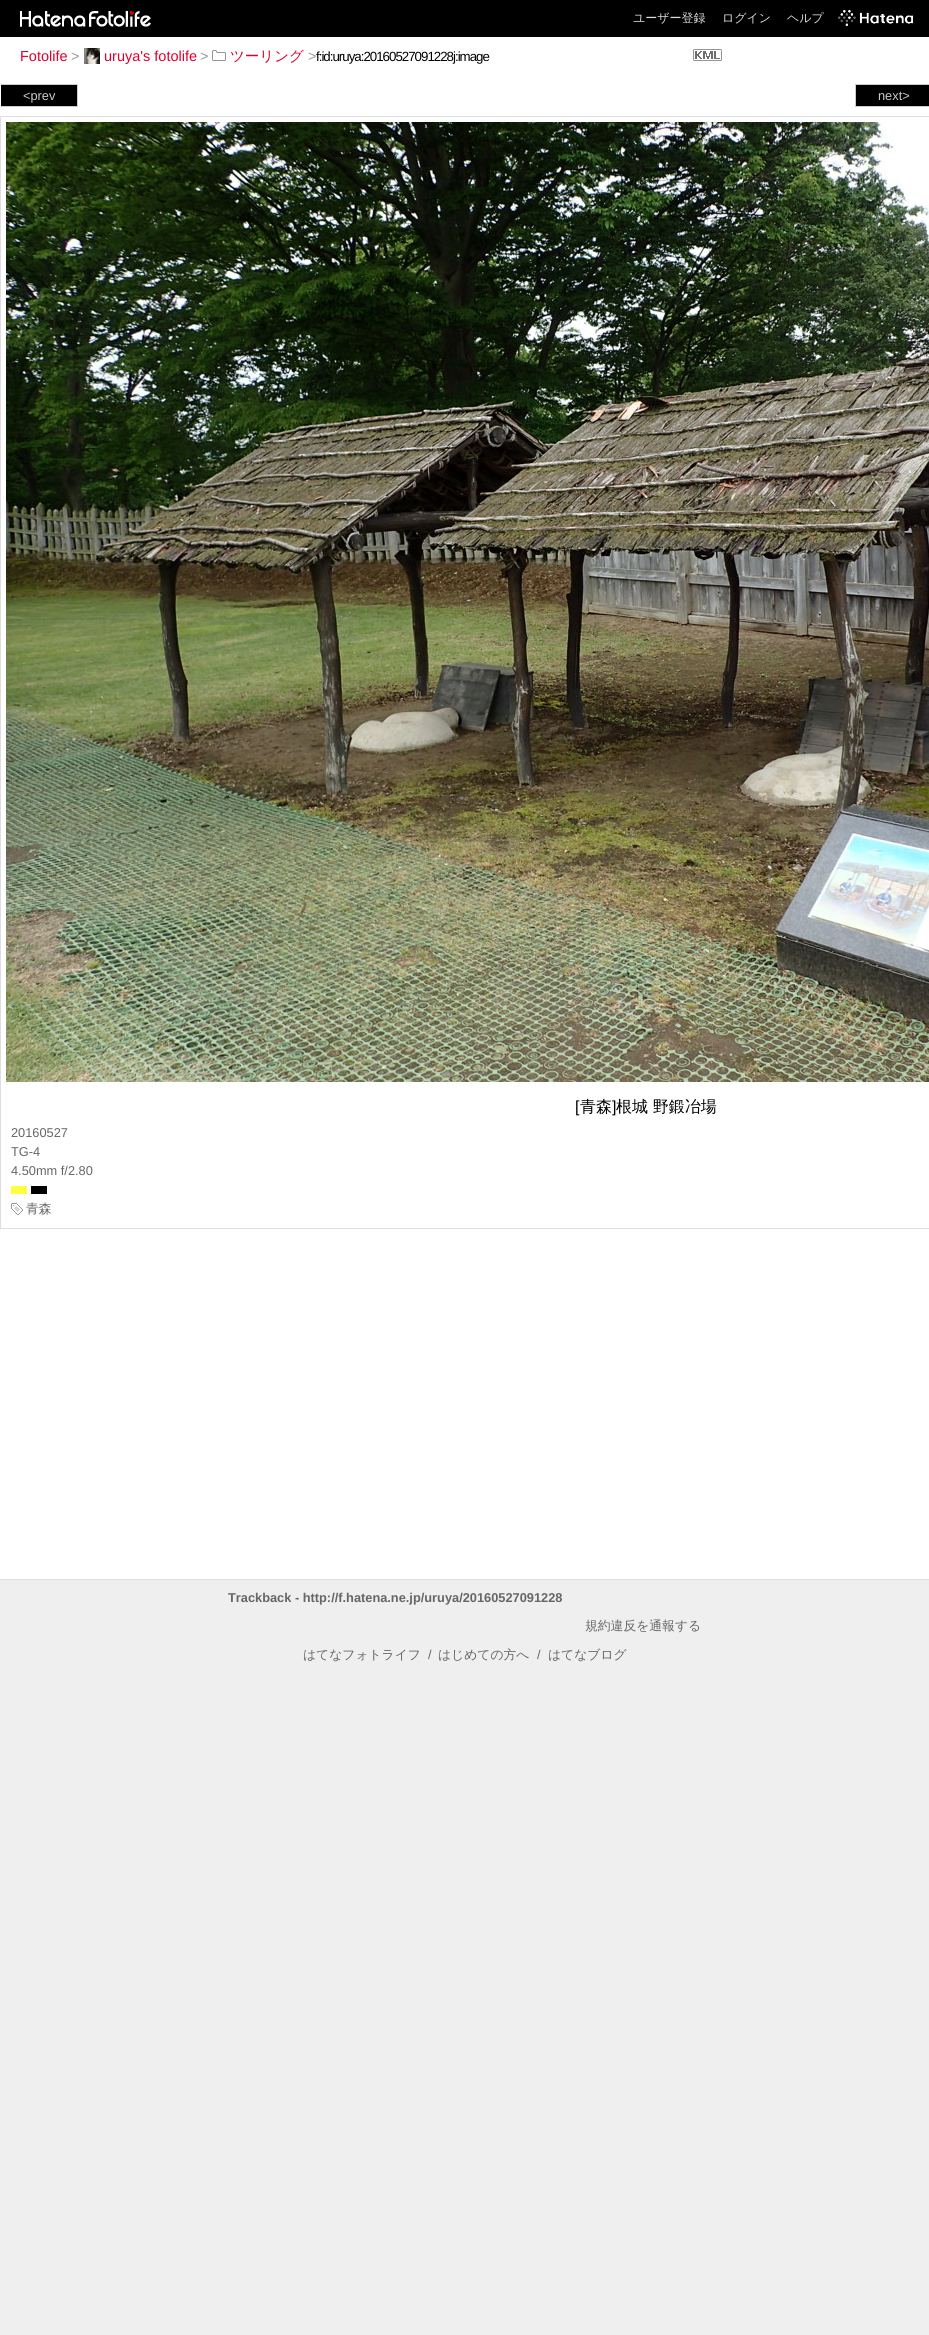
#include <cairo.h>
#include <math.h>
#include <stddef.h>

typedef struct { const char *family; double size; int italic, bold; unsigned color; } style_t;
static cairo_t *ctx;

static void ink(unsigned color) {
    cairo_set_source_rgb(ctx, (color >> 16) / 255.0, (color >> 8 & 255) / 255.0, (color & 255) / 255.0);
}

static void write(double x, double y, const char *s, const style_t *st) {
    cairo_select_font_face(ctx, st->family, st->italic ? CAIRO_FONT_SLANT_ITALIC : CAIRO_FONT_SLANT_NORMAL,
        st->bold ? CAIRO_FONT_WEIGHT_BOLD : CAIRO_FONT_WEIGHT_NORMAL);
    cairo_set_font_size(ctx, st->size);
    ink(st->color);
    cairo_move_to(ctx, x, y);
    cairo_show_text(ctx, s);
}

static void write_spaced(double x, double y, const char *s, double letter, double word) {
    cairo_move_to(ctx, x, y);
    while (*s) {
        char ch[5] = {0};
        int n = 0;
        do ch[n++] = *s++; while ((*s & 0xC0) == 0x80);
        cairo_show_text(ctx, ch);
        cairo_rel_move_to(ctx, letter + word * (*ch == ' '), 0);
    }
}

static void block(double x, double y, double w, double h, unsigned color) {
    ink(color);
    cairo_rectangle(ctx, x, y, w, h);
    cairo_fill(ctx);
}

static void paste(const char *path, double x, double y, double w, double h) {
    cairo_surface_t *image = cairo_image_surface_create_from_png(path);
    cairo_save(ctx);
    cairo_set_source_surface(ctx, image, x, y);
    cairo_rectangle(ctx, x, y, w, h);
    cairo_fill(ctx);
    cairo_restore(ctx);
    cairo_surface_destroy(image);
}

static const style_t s1 = {"WenQuanYi Zen Hei Medium", 12, 0, 0, 0xdddddd};
static const style_t s2 = {"Liberation Sans", 14.5, 0, 0, 0xde002f};
static const style_t s3 = {"Liberation Sans", 14.5, 0, 0, 0x999999};
static const style_t s4 = {"WenQuanYi Zen Hei Medium", 14.5, 0, 0, 0xde002f};
static const style_t s5 = {"Liberation Sans", 12.8, 0, 0, 0xcccccc};
static const style_t s6 = {"Liberation Sans", 16, 0, 0, 0x000000};
static const style_t s7 = {"WenQuanYi Zen Hei Medium", 16, 0, 0, 0x000000};
static const style_t s8 = {"Liberation Sans", 12.8, 0, 0, 0x666666};
static const style_t s9 = {"WenQuanYi Zen Hei Medium", 12.8, 0, 0, 0x666666};
static const style_t s10 = {"Liberation Sans", 12.8, 0, 1, 0x666666};

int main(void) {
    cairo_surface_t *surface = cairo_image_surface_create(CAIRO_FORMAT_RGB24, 929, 2335);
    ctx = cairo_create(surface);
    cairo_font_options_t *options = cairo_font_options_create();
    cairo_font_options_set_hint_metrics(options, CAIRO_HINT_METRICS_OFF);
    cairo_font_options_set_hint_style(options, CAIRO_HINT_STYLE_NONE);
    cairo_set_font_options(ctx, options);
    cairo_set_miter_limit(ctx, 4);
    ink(0xefefef);
    cairo_paint(ctx);
    block(0, 0, 929, 37, 0x000000);
    paste("pic1.png", 20, 11, 66, 16);
    paste("pic2.png", 89, 11, 62, 16);
    write(633, 22, "ユーザー登録", &s1);
    write(722, 22, "ログイン", &s1);
    write(787, 22, "ヘルプ", &s1);
    paste("pic3.png", 838, 10, 75, 16);
    block(0, 37, 929, 1542, 0xffffff);
    write(20, 61, "Fotolife", &s2);
    write(71, 61, ">", &s3);
    paste("pic4.png", 84, 48, 16, 16);
    write(104, 61, "uruya's fotolife", &s2);
    write(200, 61, ">", &s3);
    paste("pic5.png", 212, 50, 14, 11);
    write(230, 61, "ツーリング", &s4);
    write(308, 61, ">", &s3);
    cairo_set_font_size(ctx, 13.3);
    ink(0x000000);
    write_spaced(316, 61, "f:id:uruya:20160527091228j:image", -1, 0);
    paste("pic6.png", 693, 49, 29, 12);
    block(0, 1579, 929, 1, 0xdedede);
    block(1, 85, 76, 21, 0x000000);
    block(1, 84, 77, 1, 0xcccccc);
    block(77, 84, 1, 23, 0xcccccc);
    block(1, 106, 77, 1, 0xcccccc);
    write(23, 100, "<prev", &s5);
    block(856, 85, 73, 21, 0x000000);
    block(855, 84, 74, 1, 0xcccccc);
    block(855, 106, 74, 1, 0xcccccc);
    block(855, 84, 1, 23, 0xcccccc);
    write(878, 100, "next>", &s5);
    cairo_rectangle(ctx, 0.5, 116.5, 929, 1112);
    ink(0xdedede);
    cairo_set_line_width(ctx, 1);
    cairo_stroke(ctx);
    paste("pic7.png", 6, 122, 923, 960);
    write(575, 1112, "[", &s6);
    write(580, 1112, "青森", &s7);
    write(612, 1112, "]", &s6);
    write(616, 1112, "根城 野鍛冶場", &s7);
    write(11, 1137, "20160527", &s8);
    write(11, 1156, "TG-4", &s8);
    write(11, 1175, "4.50mm f/2.80", &s8);
    block(11, 1186, 16, 8, 0xffff40);
    block(31, 1186, 16, 8, 0x000000);
    paste("pic8.png", 11, 1203, 12, 12);
    write(26, 1213, "青森", &s9);
    write(228, 1602, "Trackback - http://f.hatena.ne.jp/uruya/20160527091228", &s10);
    write(585, 1630, "規約違反を通報する", &s9);
    write(303, 1659, "はてなフォトライフ", &s9);
    write(428, 1659, "/", &s8);
    write(438, 1659, "はじめての方へ", &s9);
    write(537, 1659, "/", &s8);
    write(548, 1659, "はてなブログ", &s9);
    cairo_surface_write_to_png(surface, "screenshot.png");
    cairo_font_options_destroy(options);
    cairo_destroy(ctx);
    cairo_surface_destroy(surface);
    return 0;
}
